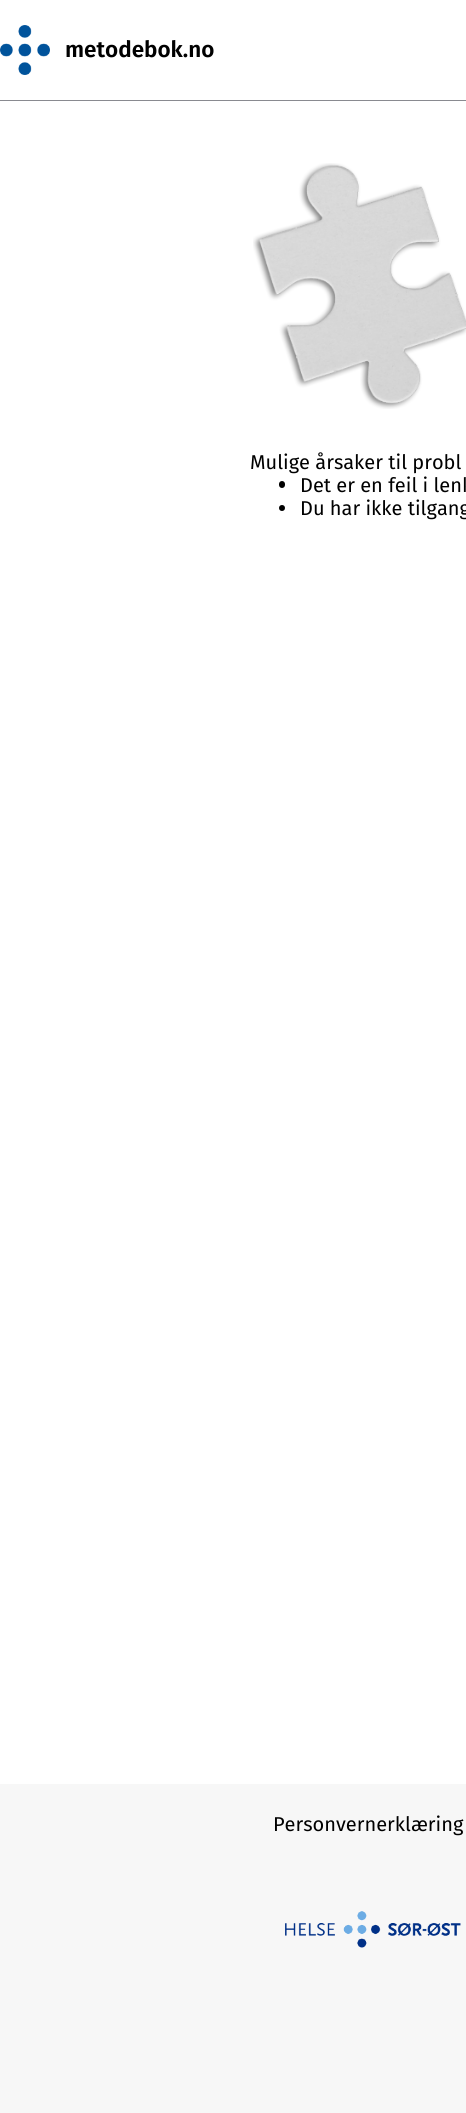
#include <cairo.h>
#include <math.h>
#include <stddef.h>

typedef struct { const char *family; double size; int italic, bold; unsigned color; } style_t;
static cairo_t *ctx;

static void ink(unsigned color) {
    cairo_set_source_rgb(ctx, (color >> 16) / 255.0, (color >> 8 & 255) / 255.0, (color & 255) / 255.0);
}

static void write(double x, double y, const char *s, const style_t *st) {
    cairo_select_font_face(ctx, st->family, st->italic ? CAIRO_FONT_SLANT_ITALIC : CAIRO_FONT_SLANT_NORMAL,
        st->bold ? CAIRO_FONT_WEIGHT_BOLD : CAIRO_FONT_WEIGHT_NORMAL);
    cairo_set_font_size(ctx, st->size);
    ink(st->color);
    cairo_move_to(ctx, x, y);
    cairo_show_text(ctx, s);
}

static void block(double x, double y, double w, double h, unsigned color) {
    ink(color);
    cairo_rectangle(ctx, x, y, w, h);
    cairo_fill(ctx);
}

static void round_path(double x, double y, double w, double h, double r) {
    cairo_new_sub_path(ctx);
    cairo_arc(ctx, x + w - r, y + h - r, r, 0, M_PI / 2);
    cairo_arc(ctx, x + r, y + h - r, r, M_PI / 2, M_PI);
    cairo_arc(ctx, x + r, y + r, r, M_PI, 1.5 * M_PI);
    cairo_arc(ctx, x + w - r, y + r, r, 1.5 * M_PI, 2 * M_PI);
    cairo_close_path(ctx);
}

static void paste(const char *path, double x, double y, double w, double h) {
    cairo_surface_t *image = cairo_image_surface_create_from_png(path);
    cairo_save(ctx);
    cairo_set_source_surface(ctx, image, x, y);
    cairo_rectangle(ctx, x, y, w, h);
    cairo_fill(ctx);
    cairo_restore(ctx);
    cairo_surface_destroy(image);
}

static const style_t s1 = {"Fira Sans SemiBold", 22.5, 0, 0, 0x000000};
static const style_t s2 = {"Fira Sans", 20, 0, 0, 0x000000};

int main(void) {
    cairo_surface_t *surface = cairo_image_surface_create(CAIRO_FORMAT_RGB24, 466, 2113);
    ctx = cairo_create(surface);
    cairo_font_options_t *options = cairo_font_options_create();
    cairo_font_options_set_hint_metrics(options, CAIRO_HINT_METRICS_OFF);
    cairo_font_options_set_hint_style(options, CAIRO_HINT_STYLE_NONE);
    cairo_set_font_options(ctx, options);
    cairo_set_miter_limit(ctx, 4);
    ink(0xffffff);
    cairo_paint(ctx);
    paste("pic1.png", 0, 25, 50, 50);
    write(65, 57, "metodebok.no", &s1);
    block(0, 100, 466, 1, 0x898a90);
    paste("pic2.png", 253, 163, 213, 246);
    write(250, 469, "Mulige årsaker til probl", &s2);
    round_path(279, 481, 6, 7, 3);
    cairo_fill(ctx);
    write(300, 492, "Det er en feil i lenk", &s2);
    cairo_new_path(ctx);
    cairo_arc(ctx, 282, 508, 3, 0, 2 * M_PI);
    cairo_fill(ctx);
    write(300, 515, "Du har ikke tilgang", &s2);
    block(0, 1784, 466, 329, 0xf7f7f7);
    write(273, 1831, "Personvernerklæring", &s2);
    paste("pic3.png", 285, 1911, 176, 37);
    cairo_surface_write_to_png(surface, "screenshot.png");
    cairo_font_options_destroy(options);
    cairo_destroy(ctx);
    cairo_surface_destroy(surface);
    return 0;
}
